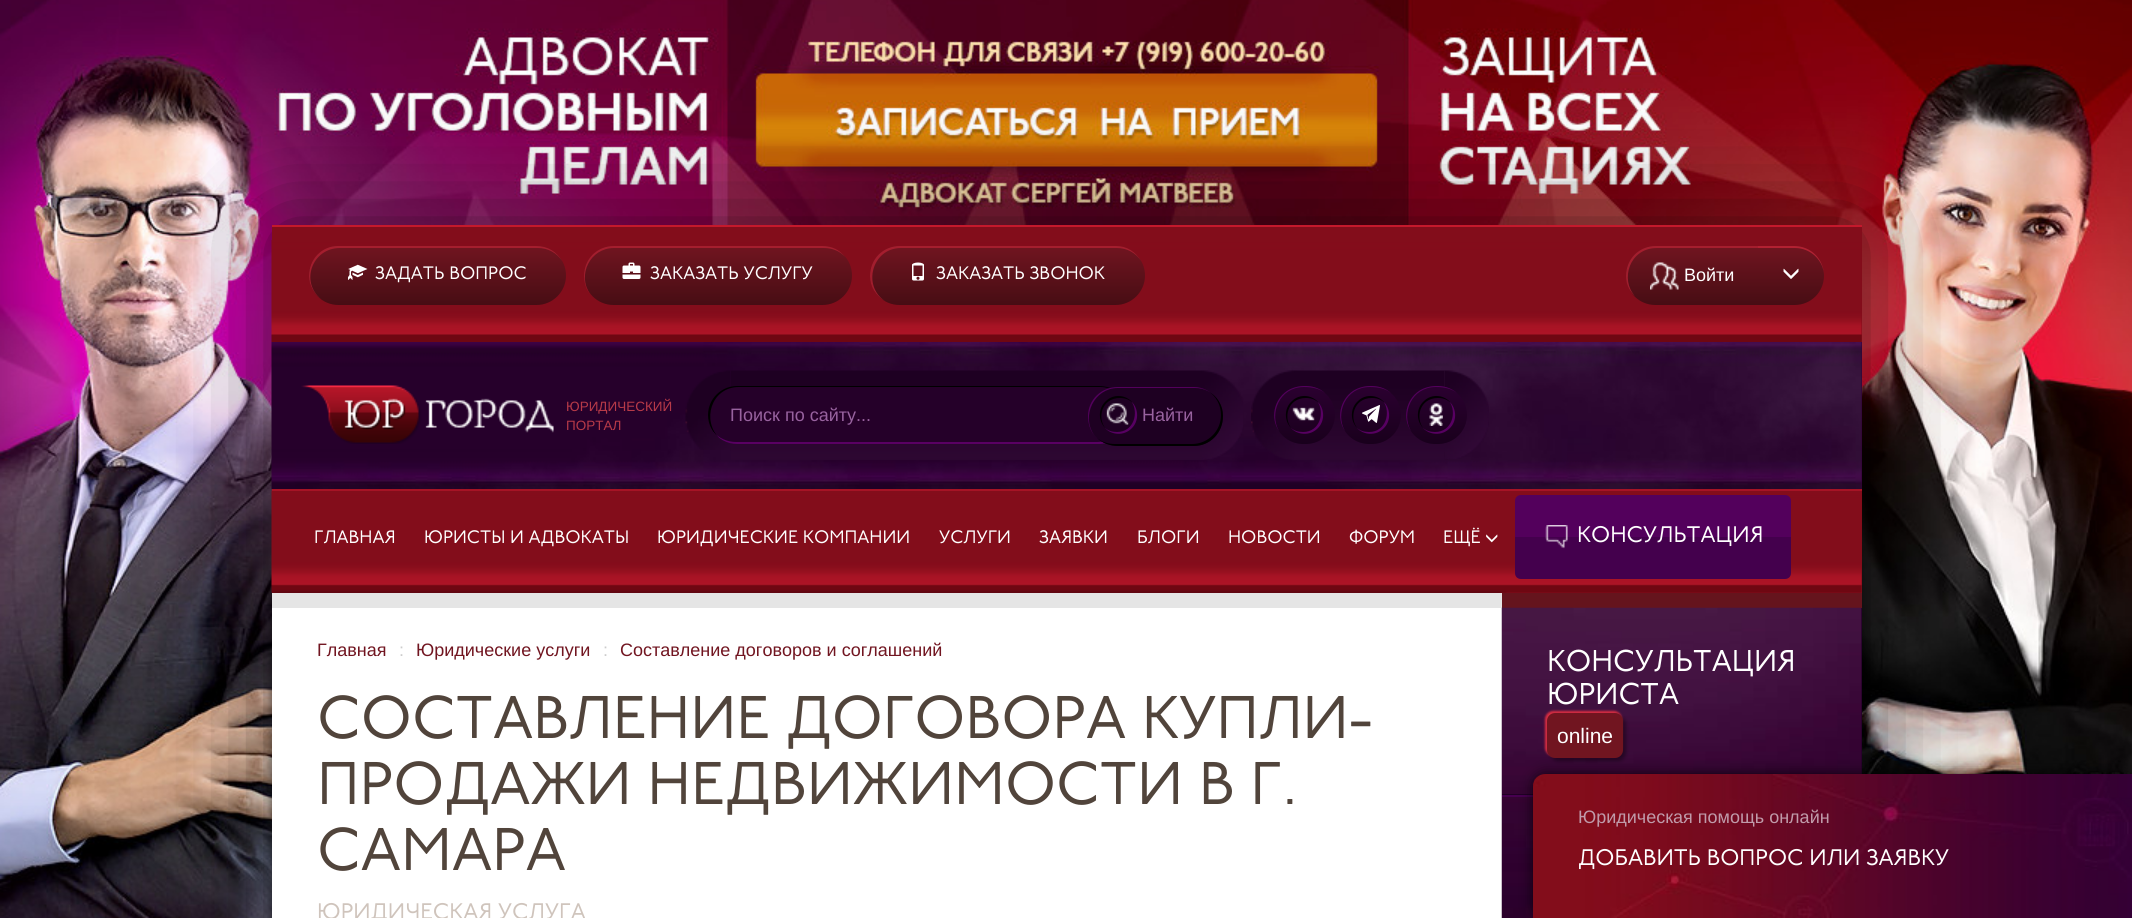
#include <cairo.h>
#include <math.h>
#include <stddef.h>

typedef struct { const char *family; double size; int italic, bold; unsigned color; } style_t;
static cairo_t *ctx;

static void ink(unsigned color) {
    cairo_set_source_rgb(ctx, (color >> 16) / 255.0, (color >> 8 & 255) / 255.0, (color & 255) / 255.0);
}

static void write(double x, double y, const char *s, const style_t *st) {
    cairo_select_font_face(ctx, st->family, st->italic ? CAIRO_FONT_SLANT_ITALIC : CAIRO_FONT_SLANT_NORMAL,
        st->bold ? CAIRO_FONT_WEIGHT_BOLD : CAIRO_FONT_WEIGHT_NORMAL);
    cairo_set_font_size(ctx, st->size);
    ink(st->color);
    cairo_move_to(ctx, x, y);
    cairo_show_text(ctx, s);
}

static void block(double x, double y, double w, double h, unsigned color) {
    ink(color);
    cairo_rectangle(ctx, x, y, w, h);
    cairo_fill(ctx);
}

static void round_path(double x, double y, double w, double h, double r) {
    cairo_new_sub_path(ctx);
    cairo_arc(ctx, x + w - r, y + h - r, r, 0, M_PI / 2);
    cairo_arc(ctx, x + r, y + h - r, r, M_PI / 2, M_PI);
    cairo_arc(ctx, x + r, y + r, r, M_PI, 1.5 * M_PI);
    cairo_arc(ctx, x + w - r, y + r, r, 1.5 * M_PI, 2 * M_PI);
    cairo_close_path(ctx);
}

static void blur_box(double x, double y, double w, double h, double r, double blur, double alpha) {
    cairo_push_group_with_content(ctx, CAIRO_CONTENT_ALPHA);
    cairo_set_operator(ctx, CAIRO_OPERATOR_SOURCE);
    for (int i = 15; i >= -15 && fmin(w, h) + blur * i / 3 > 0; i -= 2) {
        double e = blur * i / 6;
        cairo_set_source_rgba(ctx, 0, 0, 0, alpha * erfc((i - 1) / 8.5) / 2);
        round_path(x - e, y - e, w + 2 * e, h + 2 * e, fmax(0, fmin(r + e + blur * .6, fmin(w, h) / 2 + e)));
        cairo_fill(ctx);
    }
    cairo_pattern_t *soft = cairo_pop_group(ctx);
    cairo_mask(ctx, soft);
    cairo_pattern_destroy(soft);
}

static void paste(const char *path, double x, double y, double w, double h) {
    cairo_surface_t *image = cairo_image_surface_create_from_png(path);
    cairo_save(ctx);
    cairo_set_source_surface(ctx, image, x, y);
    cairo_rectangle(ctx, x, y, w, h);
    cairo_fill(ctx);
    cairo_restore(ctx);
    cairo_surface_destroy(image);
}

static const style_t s1 = {"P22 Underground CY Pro", 18, 0, 0, 0xffffff};
static const style_t s2 = {"Liberation Sans", 18, 0, 0, 0xffffff};
static const style_t s3 = {"Liberation Sans", 13.5, 0, 0, 0xb73a48};
static const style_t s4 = {"Liberation Sans", 18, 0, 0, 0x98629f};
static const style_t s5 = {"P22 Underground CY Pro", 22.5, 0, 0, 0xffffff};
static const style_t s6 = {"Liberation Sans", 18, 0, 0, 0x711520};
static const style_t s7 = {"Liberation Sans", 18, 0, 0, 0xcccccc};
static const style_t s8 = {"P22 Underground CY Pro", 60, 0, 0, 0x51443b};
static const style_t s9 = {"P22 Underground CY Pro", 22.5, 0, 0, 0xcfc4bc};
static const style_t s10 = {"P22 Underground CY Pro", 30, 0, 0, 0xffffff};
static const style_t s11 = {"Liberation Sans", 21, 0, 0, 0xffffff};
static const style_t s12 = {"Liberation Sans", 18, 0, 0, 0xc09baa};

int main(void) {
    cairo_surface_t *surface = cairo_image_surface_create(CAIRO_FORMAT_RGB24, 2132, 918);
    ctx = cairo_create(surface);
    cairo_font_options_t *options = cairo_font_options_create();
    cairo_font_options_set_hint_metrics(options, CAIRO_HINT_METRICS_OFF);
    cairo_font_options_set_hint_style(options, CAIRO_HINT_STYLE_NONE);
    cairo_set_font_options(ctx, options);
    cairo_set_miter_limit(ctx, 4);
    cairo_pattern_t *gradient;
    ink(0xffffff);
    cairo_paint(ctx);
    paste("pic1.png", 0, 0, 2132, 918);
    ink(0x000000);
    blur_box(272, 225, 1590, 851, 0, 52.5, 0.6);
    block(272, 227, 1590, 115, 0x830d1b);
    paste("pic2.png", 271, 240, 1591, 102);
    block(272, 225, 1590, 2, 0xc4192c);
    gradient = cairo_pattern_create_linear(437, 246, 437, 305);
    cairo_pattern_add_color_stop_rgba(gradient, 0, 0.443, 0.082, 0.125, 1);
    cairo_pattern_add_color_stop_rgba(gradient, 1, 0.278, 0.051, 0.078, 1);
    cairo_set_source(ctx, gradient);
    cairo_pattern_destroy(gradient);
    round_path(309, 246, 257, 59, 29.5);
    cairo_fill(ctx);
    cairo_set_source_rgba(ctx, 0.698, 0.129, 0.196, 0.8);
    cairo_new_path(ctx);
    cairo_move_to(ctx, 340, 248);
    cairo_line_to(ctx, 538, 248);
    cairo_curve_to(ctx, 548, 248, 557, 253, 562, 261);
    cairo_curve_to(ctx, 557, 252, 548, 246, 536, 246);
    cairo_line_to(ctx, 338, 246);
    cairo_curve_to(ctx, 322, 246, 309, 259, 309, 276);
    cairo_curve_to(ctx, 309, 285, 314, 294, 321, 299);
    cairo_curve_to(ctx, 300, 282, 312, 248, 340, 248);
    cairo_close_path(ctx);
    cairo_fill(ctx);
    paste("pic3.png", 348, 264, 20, 16);
    write(375, 279, "ЗАДАТЬ ВОПРОС", &s1);
    gradient = cairo_pattern_create_linear(718, 246, 718, 305);
    cairo_pattern_add_color_stop_rgba(gradient, 0, 0.443, 0.082, 0.125, 1);
    cairo_pattern_add_color_stop_rgba(gradient, 1, 0.278, 0.051, 0.078, 1);
    cairo_set_source(ctx, gradient);
    cairo_pattern_destroy(gradient);
    round_path(584, 246, 268, 59, 29.5);
    cairo_fill(ctx);
    cairo_set_source_rgba(ctx, 0.698, 0.129, 0.196, 0.8);
    cairo_new_path(ctx);
    cairo_move_to(ctx, 614, 248);
    cairo_line_to(ctx, 824, 248);
    cairo_curve_to(ctx, 832, 248, 840, 251, 845, 257);
    cairo_curve_to(ctx, 840, 250, 832, 246, 822, 246);
    cairo_line_to(ctx, 614, 246);
    cairo_curve_to(ctx, 597, 246, 584, 259, 584, 276);
    cairo_curve_to(ctx, 584, 282, 586, 289, 590, 294);
    cairo_curve_to(ctx, 577, 275, 590, 248, 614, 248);
    cairo_close_path(ctx);
    cairo_fill(ctx);
    paste("pic4.png", 622, 262, 19, 17);
    write(650, 279, "ЗАКАЗАТЬ УСЛУГУ", &s1);
    gradient = cairo_pattern_create_linear(1007, 246, 1007, 305);
    cairo_pattern_add_color_stop_rgba(gradient, 0, 0.443, 0.082, 0.125, 1);
    cairo_pattern_add_color_stop_rgba(gradient, 1, 0.278, 0.051, 0.078, 1);
    cairo_set_source(ctx, gradient);
    cairo_pattern_destroy(gradient);
    round_path(870, 246, 275, 59, 29.5);
    cairo_fill(ctx);
    cairo_set_source_rgba(ctx, 0.698, 0.129, 0.196, 0.8);
    cairo_new_path(ctx);
    cairo_move_to(ctx, 901, 248);
    cairo_line_to(ctx, 1117, 248);
    cairo_curve_to(ctx, 1127, 248, 1136, 253, 1141, 261);
    cairo_curve_to(ctx, 1136, 252, 1127, 246, 1116, 246);
    cairo_line_to(ctx, 900, 246);
    cairo_curve_to(ctx, 883, 246, 870, 259, 870, 276);
    cairo_curve_to(ctx, 870, 287, 876, 296, 885, 301);
    cairo_curve_to(ctx, 862, 286, 872, 248, 901, 248);
    cairo_close_path(ctx);
    cairo_fill(ctx);
    paste("pic5.png", 912, 262, 12, 19);
    write(936, 279, "ЗАКАЗАТЬ ЗВОНОК", &s1);
    gradient = cairo_pattern_create_linear(1692, 246, 1692, 305);
    cairo_pattern_add_color_stop_rgba(gradient, 0, 0.443, 0.082, 0.125, 1);
    cairo_pattern_add_color_stop_rgba(gradient, 1, 0.278, 0.051, 0.078, 1);
    cairo_set_source(ctx, gradient);
    cairo_pattern_destroy(gradient);
    cairo_new_path(ctx);
    cairo_move_to(ctx, 1655.5, 246);
    cairo_line_to(ctx, 1758, 246);
    cairo_line_to(ctx, 1758, 305);
    cairo_line_to(ctx, 1655.5, 305);
    cairo_curve_to(ctx, 1639, 305, 1626, 292, 1626, 275.5);
    cairo_curve_to(ctx, 1626, 259, 1639, 246, 1655.5, 246);
    cairo_close_path(ctx);
    cairo_fill(ctx);
    cairo_set_source_rgba(ctx, 0.698, 0.129, 0.196, 0.8);
    cairo_new_path(ctx);
    cairo_move_to(ctx, 1657, 248);
    cairo_line_to(ctx, 1758, 248);
    cairo_line_to(ctx, 1758, 246);
    cairo_line_to(ctx, 1656, 246);
    cairo_curve_to(ctx, 1639, 246, 1626, 259, 1626, 276);
    cairo_curve_to(ctx, 1626, 284, 1629, 291, 1635, 296);
    cairo_curve_to(ctx, 1620, 280, 1629, 248, 1657, 248);
    cairo_close_path(ctx);
    cairo_fill(ctx);
    paste("pic6.png", 1650, 262, 29, 28);
    write(1684, 281, "Войти", &s2);
    gradient = cairo_pattern_create_linear(1791, 246, 1791, 305);
    cairo_pattern_add_color_stop_rgba(gradient, 0, 0.443, 0.082, 0.125, 1);
    cairo_pattern_add_color_stop_rgba(gradient, 1, 0.278, 0.051, 0.078, 1);
    cairo_set_source(ctx, gradient);
    cairo_pattern_destroy(gradient);
    cairo_new_path(ctx);
    cairo_move_to(ctx, 1758, 246);
    cairo_line_to(ctx, 1794.5, 246);
    cairo_curve_to(ctx, 1811, 246, 1824, 259, 1824, 275.5);
    cairo_curve_to(ctx, 1824, 292, 1811, 305, 1794.5, 305);
    cairo_line_to(ctx, 1758, 305);
    cairo_close_path(ctx);
    cairo_fill(ctx);
    ink(0xb22132);
    cairo_new_path(ctx);
    cairo_move_to(ctx, 1758, 248);
    cairo_line_to(ctx, 1795, 248);
    cairo_curve_to(ctx, 1811, 248, 1824, 261, 1824, 276);
    cairo_curve_to(ctx, 1824, 259, 1811, 246, 1794, 246);
    cairo_line_to(ctx, 1758, 246);
    cairo_close_path(ctx);
    cairo_fill(ctx);
    paste("pic7.png", 1783, 268, 16, 11);
    block(1861, 342, 1, 147, 0x320039);
    paste("pic8.png", 271, 342, 1591, 147);
    paste("pic9.png", 301, 385, 253, 59);
    write(566, 411, "ЮРИДИЧЕСКИЙ", &s3);
    write(566, 430, "ПОРТАЛ", &s3);
    paste("pic10.png", 685, 370, 46, 80);
    paste("pic11.png", 731, 370, 469, 90);
    ink(0x250029);
    round_path(708, 386, 420, 58, 29);
    cairo_fill(ctx);
    ink(0x590063);
    cairo_new_path(ctx);
    cairo_move_to(ctx, 713, 432);
    cairo_curve_to(ctx, 719, 439, 727, 444, 737, 444);
    cairo_line_to(ctx, 1099, 444);
    cairo_curve_to(ctx, 1115, 444, 1128, 431, 1128, 415);
    cairo_curve_to(ctx, 1128, 406, 1124, 399, 1118, 393);
    cairo_curve_to(ctx, 1123, 399, 1126, 405, 1126, 413);
    cairo_curve_to(ctx, 1126, 429, 1113, 442, 1097, 442);
    cairo_line_to(ctx, 736, 442);
    cairo_curve_to(ctx, 727, 442, 719, 438, 713, 432);
    cairo_close_path(ctx);
    cairo_fill(ctx);
    ink(0x000000);
    cairo_new_path(ctx);
    cairo_move_to(ctx, 739, 387);
    cairo_line_to(ctx, 1100, 387);
    cairo_curve_to(ctx, 1106, 387, 1112, 389, 1117, 392);
    cairo_curve_to(ctx, 1112, 388, 1106, 386, 1099, 386);
    cairo_line_to(ctx, 737, 386);
    cairo_curve_to(ctx, 721, 386, 708, 399, 708, 415);
    cairo_curve_to(ctx, 708, 425, 713, 433, 720, 439);
    cairo_curve_to(ctx, 701, 421, 711, 387, 739, 387);
    cairo_close_path(ctx);
    cairo_fill(ctx);
    write(730, 421, "Поиск по сайту...", &s4);
    paste("pic13.png", 1200, 370, 43, 90);
    ink(0x1e0022);
    round_path(1088, 387, 135, 59, 29.5);
    cairo_fill(ctx);
    ink(0x000000);
    cairo_new_path(ctx);
    cairo_move_to(ctx, 1097, 438);
    cairo_curve_to(ctx, 1102, 443, 1110, 446, 1118, 446);
    cairo_line_to(ctx, 1194, 446);
    cairo_curve_to(ctx, 1210, 446, 1223, 433, 1223, 416);
    cairo_curve_to(ctx, 1223, 405, 1217, 396, 1208, 391);
    cairo_curve_to(ctx, 1216, 396, 1221, 405, 1221, 415);
    cairo_curve_to(ctx, 1221, 431, 1208, 444, 1192, 444);
    cairo_line_to(ctx, 1115, 444);
    cairo_curve_to(ctx, 1108, 444, 1102, 442, 1097, 438);
    cairo_close_path(ctx);
    cairo_fill(ctx);
    cairo_set_source_rgba(ctx, 0.349, 0, 0.388, 0.9);
    cairo_new_path(ctx);
    cairo_move_to(ctx, 1118, 388);
    cairo_line_to(ctx, 1195, 388);
    cairo_curve_to(ctx, 1204, 388, 1212, 392, 1217, 399);
    cairo_curve_to(ctx, 1212, 392, 1203, 387, 1194, 387);
    cairo_line_to(ctx, 1118, 387);
    cairo_curve_to(ctx, 1101, 387, 1088, 400, 1088, 416);
    cairo_curve_to(ctx, 1088, 423, 1090, 430, 1094, 435);
    cairo_curve_to(ctx, 1081, 416, 1094, 388, 1118, 388);
    cairo_close_path(ctx);
    cairo_fill(ctx);
    paste("pic12.png", 1106, 403, 23, 22);
    ink(0x030003);
    cairo_new_path(ctx);
    cairo_move_to(ctx, 1120, 398);
    cairo_curve_to(ctx, 1126.5, 398, 1131, 400.5, 1134, 404.5);
    cairo_curve_to(ctx, 1127.5, 394.5, 1113.5, 393, 1105.5, 401.5);
    cairo_curve_to(ctx, 1098, 408.5, 1098, 421, 1105.5, 428.5);
    cairo_curve_to(ctx, 1097, 418, 1101.5, 398, 1120, 398);
    cairo_close_path(ctx);
    cairo_fill(ctx);
    ink(0x570062);
    cairo_new_path(ctx);
    cairo_move_to(ctx, 1104.5, 427.5);
    cairo_curve_to(ctx, 1111.5, 435.5, 1124, 436, 1131.5, 428.5);
    cairo_curve_to(ctx, 1139, 421.5, 1139, 409, 1131.5, 401.5);
    cairo_curve_to(ctx, 1139, 412.5, 1134, 432, 1117, 432);
    cairo_curve_to(ctx, 1112, 432, 1107.5, 430.5, 1104.5, 427.5);
    cairo_close_path(ctx);
    cairo_fill(ctx);
    write(1142, 421, "Найти", &s4);
    paste("pic14.png", 1251, 370, 45, 90);
    paste("pic19.png", 1444, 370, 45, 89);
    paste("pic15.png", 1296, 370, 149, 90);
    gradient = cairo_pattern_create_linear(1304, 386, 1304, 444);
    cairo_pattern_add_color_stop_rgba(gradient, 0, 0.169, 0, 0.188, 1);
    cairo_pattern_add_color_stop_rgba(gradient, 1, 0.098, 0, 0.11, 1);
    cairo_set_source(ctx, gradient);
    cairo_pattern_destroy(gradient);
    round_path(1274, 386, 61, 58, 29);
    cairo_fill(ctx);
    cairo_set_source_rgba(ctx, 0.349, 0, 0.388, 0.9);
    cairo_new_path(ctx);
    cairo_move_to(ctx, 1304, 387);
    cairo_curve_to(ctx, 1313, 387, 1320, 389, 1325, 393);
    cairo_curve_to(ctx, 1315, 384, 1298, 384, 1287, 391);
    cairo_curve_to(ctx, 1274, 400, 1270, 418, 1279, 431);
    cairo_curve_to(ctx, 1269, 414, 1279, 387, 1304, 387);
    cairo_close_path(ctx);
    cairo_fill(ctx);
    paste("pic16.png", 1292, 407, 23, 14);
    cairo_set_source_rgba(ctx, 0, 0, 0, 0.9);
    cairo_new_path(ctx);
    cairo_move_to(ctx, 1306, 398);
    cairo_curve_to(ctx, 1312.5, 398, 1317, 400.5, 1320, 404.5);
    cairo_curve_to(ctx, 1313.5, 394.5, 1299.5, 393, 1291.5, 401.5);
    cairo_curve_to(ctx, 1284, 408.5, 1284, 421, 1291.5, 428.5);
    cairo_curve_to(ctx, 1283, 418, 1287.5, 398, 1306, 398);
    cairo_close_path(ctx);
    cairo_fill(ctx);
    cairo_set_source_rgba(ctx, 0.439, 0, 0.49, 0.7);
    cairo_new_path(ctx);
    cairo_move_to(ctx, 1290.5, 427.5);
    cairo_curve_to(ctx, 1297.5, 435.5, 1310, 436, 1317.5, 428.5);
    cairo_curve_to(ctx, 1325, 421.5, 1325, 409, 1317.5, 401.5);
    cairo_curve_to(ctx, 1325, 412.5, 1320, 432, 1303, 432);
    cairo_curve_to(ctx, 1298, 432, 1293.5, 430.5, 1290.5, 427.5);
    cairo_close_path(ctx);
    cairo_fill(ctx);
    gradient = cairo_pattern_create_linear(1370, 386, 1370, 444);
    cairo_pattern_add_color_stop_rgba(gradient, 0, 0.169, 0, 0.188, 1);
    cairo_pattern_add_color_stop_rgba(gradient, 1, 0.098, 0, 0.11, 1);
    cairo_set_source(ctx, gradient);
    cairo_pattern_destroy(gradient);
    round_path(1340, 386, 61, 58, 29);
    cairo_fill(ctx);
    cairo_set_source_rgba(ctx, 0.349, 0, 0.388, 0.9);
    cairo_new_path(ctx);
    cairo_move_to(ctx, 1370, 387);
    cairo_curve_to(ctx, 1379, 387, 1386, 389, 1391, 393);
    cairo_curve_to(ctx, 1381, 384, 1364, 384, 1353, 391);
    cairo_curve_to(ctx, 1340, 400, 1336, 418, 1345, 431);
    cairo_curve_to(ctx, 1335, 414, 1345, 387, 1370, 387);
    cairo_close_path(ctx);
    cairo_fill(ctx);
    paste("pic17.png", 1362, 405, 18, 18);
    cairo_set_source_rgba(ctx, 0, 0, 0, 0.9);
    cairo_new_path(ctx);
    cairo_move_to(ctx, 1372, 398);
    cairo_curve_to(ctx, 1378.5, 398, 1383, 400.5, 1386, 404.5);
    cairo_curve_to(ctx, 1379.5, 394.5, 1365.5, 393, 1357.5, 401.5);
    cairo_curve_to(ctx, 1350, 408.5, 1350, 421, 1357.5, 428.5);
    cairo_curve_to(ctx, 1349, 418, 1353.5, 398, 1372, 398);
    cairo_close_path(ctx);
    cairo_fill(ctx);
    cairo_set_source_rgba(ctx, 0.439, 0, 0.49, 0.7);
    cairo_new_path(ctx);
    cairo_move_to(ctx, 1356.5, 427.5);
    cairo_curve_to(ctx, 1363.5, 435.5, 1376, 436, 1383.5, 428.5);
    cairo_curve_to(ctx, 1391, 421.5, 1391, 409, 1383.5, 401.5);
    cairo_curve_to(ctx, 1391, 412.5, 1386, 432, 1369, 432);
    cairo_curve_to(ctx, 1364, 432, 1359.5, 430.5, 1356.5, 427.5);
    cairo_close_path(ctx);
    cairo_fill(ctx);
    gradient = cairo_pattern_create_linear(1436, 386, 1436, 444);
    cairo_pattern_add_color_stop_rgba(gradient, 0, 0.169, 0, 0.188, 1);
    cairo_pattern_add_color_stop_rgba(gradient, 1, 0.098, 0, 0.11, 1);
    cairo_set_source(ctx, gradient);
    cairo_pattern_destroy(gradient);
    round_path(1406, 386, 61, 58, 29);
    cairo_fill(ctx);
    cairo_set_source_rgba(ctx, 0.349, 0, 0.388, 0.9);
    cairo_new_path(ctx);
    cairo_move_to(ctx, 1436, 387);
    cairo_curve_to(ctx, 1445, 387, 1452, 389, 1457, 393);
    cairo_curve_to(ctx, 1447, 384, 1430, 384, 1419, 391);
    cairo_curve_to(ctx, 1406, 400, 1402, 418, 1411, 431);
    cairo_curve_to(ctx, 1401, 414, 1411, 387, 1436, 387);
    cairo_close_path(ctx);
    cairo_fill(ctx);
    paste("pic18.png", 1429, 403, 14, 23);
    cairo_set_source_rgba(ctx, 0, 0, 0, 0.9);
    cairo_new_path(ctx);
    cairo_move_to(ctx, 1438, 398);
    cairo_curve_to(ctx, 1444.5, 398, 1449, 400.5, 1452, 404.5);
    cairo_curve_to(ctx, 1445.5, 394.5, 1431.5, 393, 1423.5, 401.5);
    cairo_curve_to(ctx, 1416, 408.5, 1416, 421, 1423.5, 428.5);
    cairo_curve_to(ctx, 1415, 418, 1419.5, 398, 1438, 398);
    cairo_close_path(ctx);
    cairo_fill(ctx);
    cairo_set_source_rgba(ctx, 0.439, 0, 0.49, 0.7);
    cairo_new_path(ctx);
    cairo_move_to(ctx, 1422.5, 427.5);
    cairo_curve_to(ctx, 1429.5, 435.5, 1442, 436, 1449.5, 428.5);
    cairo_curve_to(ctx, 1457, 421.5, 1457, 409, 1449.5, 401.5);
    cairo_curve_to(ctx, 1457, 412.5, 1452, 432, 1435, 432);
    cairo_curve_to(ctx, 1430, 432, 1425.5, 430.5, 1422.5, 427.5);
    cairo_close_path(ctx);
    cairo_fill(ctx);
    block(272, 491, 1590, 102, 0x830d1b);
    paste("pic20.png", 271, 490, 1591, 103);
    block(272, 489, 1590, 2, 0xa61325);
    write(314, 543, "ГЛАВНАЯ", &s1);
    write(424, 543, "ЮРИСТЫ И АДВОКАТЫ", &s1);
    write(657, 543, "ЮРИДИЧЕСКИЕ КОМПАНИИ", &s1);
    write(939, 543, "УСЛУГИ", &s1);
    write(1039, 543, "ЗАЯВКИ", &s1);
    write(1137, 543, "БЛОГИ", &s1);
    write(1228, 543, "НОВОСТИ", &s1);
    write(1349, 543, "ФОРУМ", &s1);
    write(1443, 543, "ЕЩЁ", &s1);
    paste("pic21.png", 1486, 534, 12, 9);
    ink(0x53005c);
    cairo_new_path(ctx);
    cairo_move_to(ctx, 1521, 495);
    cairo_line_to(ctx, 1785, 495);
    cairo_curve_to(ctx, 1788.5, 495, 1791, 497.5, 1791, 501);
    cairo_line_to(ctx, 1791, 537);
    cairo_line_to(ctx, 1515, 537);
    cairo_line_to(ctx, 1515, 501);
    cairo_curve_to(ctx, 1515, 497.5, 1517.5, 495, 1521, 495);
    cairo_close_path(ctx);
    cairo_fill(ctx);
    ink(0x44004d);
    cairo_new_path(ctx);
    cairo_move_to(ctx, 1515, 537);
    cairo_line_to(ctx, 1791, 537);
    cairo_line_to(ctx, 1791, 573);
    cairo_curve_to(ctx, 1791, 576.5, 1788.5, 579, 1785, 579);
    cairo_line_to(ctx, 1521, 579);
    cairo_curve_to(ctx, 1517.5, 579, 1515, 576.5, 1515, 573);
    cairo_close_path(ctx);
    cairo_fill(ctx);
    paste("pic22.png", 1545, 525, 23, 24);
    write(1577, 542, "КОНСУЛЬТАЦИЯ", &s5);
    ink(0x000000);
    blur_box(275, 593, 1230, 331, 0, 2, 0.25);
    blur_box(269, 593, 1230, 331, 0, 2, 0.25);
    block(272, 608, 1230, 310, 0xffffff);
    block(272, 593, 1230, 15, 0xe5e5e5);
    write(317, 656, "Главная", &s6);
    write(399, 656, ":", &s7);
    write(416, 656, "Юридические услуги", &s6);
    write(603, 656, ":", &s7);
    write(620, 656, "Составление договоров и соглашений", &s6);
    write(317, 738, "СОСТАВЛЕНИЕ ДОГОВОРА КУПЛИ-", &s8);
    write(317, 804, "ПРОДАЖИ НЕДВИЖИМОСТИ В Г.", &s8);
    write(317, 870, "САМАРА", &s8);
    write(317, 919, "ЮРИДИЧЕСКАЯ УСЛУГА", &s9);
    block(1502, 593, 360, 15, 0x65141d);
    block(1861, 608, 1, 166, 0x26002b);
    paste("pic23.png", 1501, 607, 361, 311);
    write(1547, 671, "КОНСУЛЬТАЦИЯ", &s10);
    write(1547, 704, "ЮРИСТА", &s10);
    ink(0xd82d42);
    blur_box(1545, 711, 77, 45, 8, 1, 1);
    ink(0x000000);
    blur_box(1550, 716, 76, 45, 8, 2, 0.4);
    ink(0x711520);
    round_path(1547, 713, 76, 45, 8);
    cairo_fill(ctx);
    write(1557, 743, "online", &s11);
    block(1502, 794, 31, 1, 0x200025);
    block(1502, 795, 31, 2, 0x470050);
    ink(0x000000);
    blur_box(1533, 774, 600, 144, 12, 7, 0.75);
    paste("pic24.png", 1533, 774, 599, 144);
    write(1578, 823, "Юридическая помощь онлайн", &s12);
    write(1578, 865, "ДОБАВИТЬ ВОПРОС ИЛИ ЗАЯВКУ", &s5);
    cairo_surface_write_to_png(surface, "screenshot.png");
    cairo_font_options_destroy(options);
    cairo_destroy(ctx);
    cairo_surface_destroy(surface);
    return 0;
}
